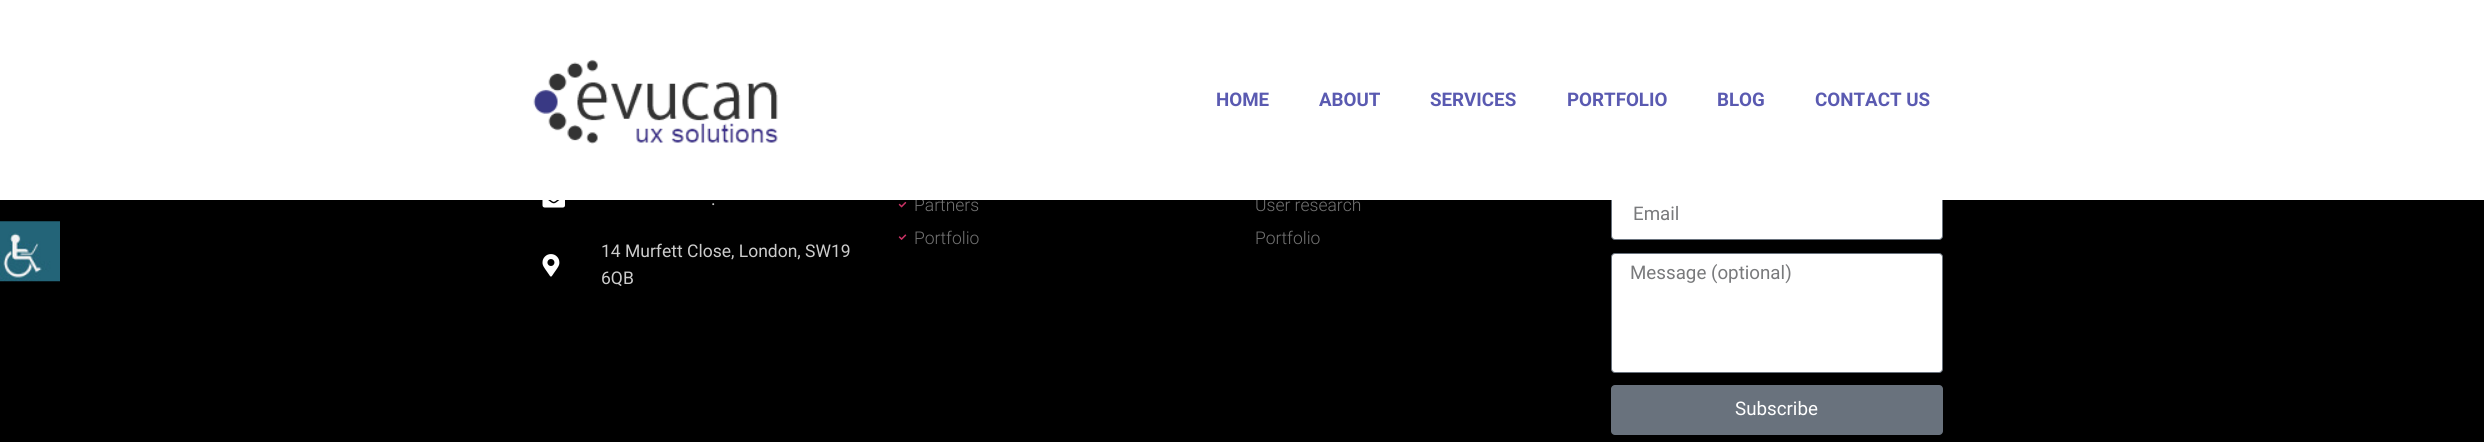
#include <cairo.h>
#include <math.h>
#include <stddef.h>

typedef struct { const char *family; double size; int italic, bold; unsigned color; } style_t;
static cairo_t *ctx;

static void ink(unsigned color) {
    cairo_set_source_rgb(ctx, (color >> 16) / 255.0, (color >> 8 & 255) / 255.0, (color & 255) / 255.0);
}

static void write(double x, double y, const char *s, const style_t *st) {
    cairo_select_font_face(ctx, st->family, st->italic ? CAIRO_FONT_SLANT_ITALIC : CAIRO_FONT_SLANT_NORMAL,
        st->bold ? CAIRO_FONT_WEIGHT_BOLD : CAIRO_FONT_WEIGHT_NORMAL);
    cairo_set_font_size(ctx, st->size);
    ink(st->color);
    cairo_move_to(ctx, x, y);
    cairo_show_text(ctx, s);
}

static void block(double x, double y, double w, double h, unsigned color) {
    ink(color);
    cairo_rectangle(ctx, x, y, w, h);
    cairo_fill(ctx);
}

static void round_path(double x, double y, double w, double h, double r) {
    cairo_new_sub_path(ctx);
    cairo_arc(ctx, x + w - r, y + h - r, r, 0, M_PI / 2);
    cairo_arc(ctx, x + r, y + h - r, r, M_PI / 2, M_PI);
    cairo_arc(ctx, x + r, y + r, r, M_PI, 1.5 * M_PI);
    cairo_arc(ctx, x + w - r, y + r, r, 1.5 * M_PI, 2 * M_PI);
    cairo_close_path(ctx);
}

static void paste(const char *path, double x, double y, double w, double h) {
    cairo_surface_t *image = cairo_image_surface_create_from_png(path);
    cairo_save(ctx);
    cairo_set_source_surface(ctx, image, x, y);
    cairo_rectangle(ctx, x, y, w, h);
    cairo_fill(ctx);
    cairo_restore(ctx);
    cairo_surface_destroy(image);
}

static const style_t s1 = {"Roboto Light", 17.5, 0, 0, 0x737373};
static const style_t s2 = {"Roboto", 18.75, 0, 1, 0x5a5ab1};
static const style_t s3 = {"Roboto", 17.5, 0, 0, 0xcccccc};
static const style_t s4 = {"Roboto", 18.75, 0, 0, 0x797a7c};
static const style_t s5 = {"Roboto", 18.75, 0, 0, 0xffffff};

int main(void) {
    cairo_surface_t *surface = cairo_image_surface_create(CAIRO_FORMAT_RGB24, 2484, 442);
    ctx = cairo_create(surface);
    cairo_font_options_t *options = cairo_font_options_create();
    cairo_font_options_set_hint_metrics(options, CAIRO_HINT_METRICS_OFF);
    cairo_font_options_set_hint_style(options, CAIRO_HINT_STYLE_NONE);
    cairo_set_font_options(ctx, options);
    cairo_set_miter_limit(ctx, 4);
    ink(0x000000);
    cairo_paint(ctx);
    write(914, 211, "Partners", &s1);
    write(1255, 211, "User research", &s1);
    ink(0xffffff);
    round_path(1611.5, 190.5, 331, 49, 3.5);
    cairo_fill_preserve(ctx);
    ink(0x69727d);
    cairo_set_line_width(ctx, 1);
    cairo_stroke(ctx);
    block(0, 0, 2484, 200, 0xffffff);
    paste("pic1.png", 533, 59, 245, 85);
    write(1216, 106, "HOME", &s2);
    write(1319, 106, "ABOUT", &s2);
    write(1430, 106, "SERVICES", &s2);
    write(1567, 106, "PORTFOLIO", &s2);
    write(1717, 106, "BLOG", &s2);
    write(1815, 106, "CONTACT US", &s2);
    paste("pic2.png", 0, 221, 60, 61);
    paste("pic3.png", 542, 200, 23, 8);
    write(711, 205, ".", &s3);
    paste("pic4.png", 542, 254, 18, 23);
    write(601, 257, "14 Murfett Close, London, SW19", &s3);
    write(601, 284, "6QB", &s3);
    paste("pic5.png", 898, 201, 9, 7);
    paste("pic6.png", 898, 234, 9, 6);
    write(914, 244, "Portfolio", &s1);
    write(1255, 244, "Portfolio", &s1);
    write(1633, 220, "Email", &s4);
    ink(0xffffff);
    round_path(1611.5, 253.5, 331, 119, 3.5);
    cairo_fill_preserve(ctx);
    ink(0x69727d);
    cairo_stroke(ctx);
    write(1630, 279, "Message (optional)", &s4);
    ink(0x69727d);
    round_path(1611, 385, 332, 50, 4);
    cairo_fill(ctx);
    write(1735, 415, "Subscribe", &s5);
    cairo_surface_write_to_png(surface, "screenshot.png");
    cairo_font_options_destroy(options);
    cairo_destroy(ctx);
    cairo_surface_destroy(surface);
    return 0;
}
